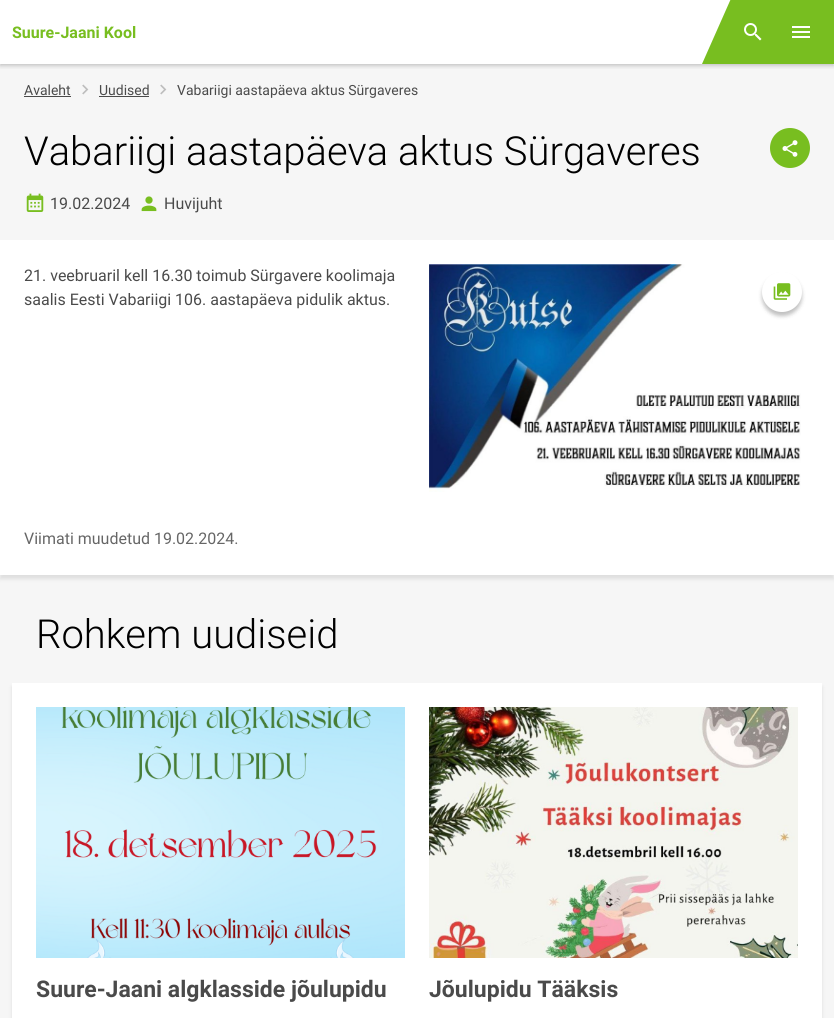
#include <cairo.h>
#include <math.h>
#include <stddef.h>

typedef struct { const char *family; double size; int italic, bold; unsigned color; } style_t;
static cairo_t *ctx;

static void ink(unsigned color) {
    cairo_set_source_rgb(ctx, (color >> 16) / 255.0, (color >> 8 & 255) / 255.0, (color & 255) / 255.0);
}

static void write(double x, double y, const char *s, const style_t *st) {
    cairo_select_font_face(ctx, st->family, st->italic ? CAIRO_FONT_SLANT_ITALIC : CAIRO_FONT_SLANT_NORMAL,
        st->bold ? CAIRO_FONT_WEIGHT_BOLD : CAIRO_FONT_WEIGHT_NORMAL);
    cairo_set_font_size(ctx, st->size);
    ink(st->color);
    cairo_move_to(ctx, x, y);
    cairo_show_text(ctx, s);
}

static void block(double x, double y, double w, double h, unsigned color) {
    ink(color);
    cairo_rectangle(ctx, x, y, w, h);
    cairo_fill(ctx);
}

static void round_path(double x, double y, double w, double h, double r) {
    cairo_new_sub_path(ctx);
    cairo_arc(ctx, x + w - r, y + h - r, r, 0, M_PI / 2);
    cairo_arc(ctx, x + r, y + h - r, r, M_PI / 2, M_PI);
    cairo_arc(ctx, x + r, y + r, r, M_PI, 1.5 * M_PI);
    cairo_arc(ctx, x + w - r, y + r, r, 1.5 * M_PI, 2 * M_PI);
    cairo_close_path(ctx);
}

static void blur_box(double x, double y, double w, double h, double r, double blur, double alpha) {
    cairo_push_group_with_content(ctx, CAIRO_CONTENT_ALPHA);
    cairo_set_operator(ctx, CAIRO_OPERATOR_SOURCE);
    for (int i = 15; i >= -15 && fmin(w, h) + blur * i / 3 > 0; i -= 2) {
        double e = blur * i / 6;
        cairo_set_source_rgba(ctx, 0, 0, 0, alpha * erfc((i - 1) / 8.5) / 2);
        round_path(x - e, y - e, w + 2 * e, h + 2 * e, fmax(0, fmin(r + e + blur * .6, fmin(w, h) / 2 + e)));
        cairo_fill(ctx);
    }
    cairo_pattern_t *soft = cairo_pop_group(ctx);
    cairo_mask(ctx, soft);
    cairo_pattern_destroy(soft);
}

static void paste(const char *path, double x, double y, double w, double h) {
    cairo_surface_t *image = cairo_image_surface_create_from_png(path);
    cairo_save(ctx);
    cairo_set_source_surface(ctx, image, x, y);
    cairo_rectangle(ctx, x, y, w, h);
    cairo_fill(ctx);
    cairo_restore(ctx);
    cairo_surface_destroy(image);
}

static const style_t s1 = {"Roboto", 16, 0, 1, 0x78be20};
static const style_t s2 = {"Roboto", 14, 0, 0, 0x4a4a4a};
static const style_t s3 = {"Roboto Light", 40, 0, 0, 0x000000};
static const style_t s4 = {"Roboto", 16, 0, 0, 0x4a4a4a};
static const style_t s5 = {"Roboto", 16, 0, 0, 0x666666};
static const style_t s6 = {"Roboto", 23, 0, 1, 0x4a4a4a};

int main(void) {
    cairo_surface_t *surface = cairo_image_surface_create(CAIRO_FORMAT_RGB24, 834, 1018);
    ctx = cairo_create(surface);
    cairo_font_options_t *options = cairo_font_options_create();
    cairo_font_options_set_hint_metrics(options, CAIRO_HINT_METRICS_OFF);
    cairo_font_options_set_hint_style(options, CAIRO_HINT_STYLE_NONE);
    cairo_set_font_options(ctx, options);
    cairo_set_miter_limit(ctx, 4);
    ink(0xffffff);
    cairo_paint(ctx);
    block(0, 64, 834, 954, 0xf6f6f6);
    cairo_save(ctx);
    cairo_rectangle(ctx, 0, 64, 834, 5);
    cairo_clip(ctx);
    ink(0x000000);
    blur_box(0, 2, 834, 64, 0, 2, 0.2);
    cairo_restore(ctx);
    write(12, 38, "Suure-Jaani Kool", &s1);
    block(702, 0, 132, 64, 0x78be20);
    ink(0xffffff);
    cairo_new_path(ctx);
    cairo_move_to(ctx, 691, -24);
    cairo_line_to(ctx, 741, -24);
    cairo_line_to(ctx, 702, 64);
    cairo_line_to(ctx, 652, 64);
    cairo_close_path(ctx);
    cairo_fill(ctx);
    paste("pic1.png", 744, 23, 18, 18);
    paste("pic2.png", 792, 26, 18, 12);
    write(24, 95, "Avaleht", &s2);
    block(24, 96, 47, 1, 0x4a4a4a);
    paste("pic3.png", 82, 84, 7, 11);
    write(99, 95, "Uudised", &s2);
    block(99, 96, 50, 1, 0x4a4a4a);
    paste("pic3.png", 160, 84, 7, 11);
    write(177, 95, "Vabariigi aastapäeva aktus Sürgaveres", &s2);
    write(24, 165, "Vabariigi aastapäeva aktus Sürgaveres", &s3);
    ink(0x78be20);
    cairo_new_path(ctx);
    cairo_arc(ctx, 790, 148, 20, 0, 2 * M_PI);
    cairo_fill(ctx);
    paste("pic4.png", 782, 140, 16, 17);
    paste("pic5.png", 26, 193, 18, 19);
    write(50, 209, "19.02.2024", &s4);
    paste("pic6.png", 141, 196, 16, 16);
    write(164, 209, "Huvijuht", &s4);
    ink(0x000000);
    blur_box(0, 244, 834, 335, 0, 2, 0.1);
    block(0, 240, 834, 335, 0xffffff);
    write(24, 281, "21. veebruaril kell 16.30 toimub Sürgavere koolimaja", &s4);
    write(24, 305, "saalis Eesti Vabariigi 106. aastapäeva pidulik aktus.", &s4);
    paste("pic7.png", 429, 264, 372, 228);
    ink(0x000000);
    blur_box(762, 276, 40, 40, 20, 2, 0.25);
    ink(0xffffff);
    cairo_arc(ctx, 782, 292, 20, 0, 2 * M_PI);
    cairo_fill(ctx);
    paste("pic8.png", 773, 283, 18, 17);
    write(24, 544, "Viimati muudetud 19.02.2024.", &s5);
    write(36, 648, "Rohkem uudiseid", &s3);
    ink(0x000000);
    blur_box(12, 687, 810, 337, 0, 2, 0.1);
    block(12, 683, 810, 335, 0xffffff);
    paste("pic9.png", 36, 707, 369, 251);
    write(36, 997, "Suure-Jaani algklasside jõulupidu", &s6);
    paste("pic10.png", 429, 707, 369, 251);
    write(429, 997, "Jõulupidu Tääksis", &s6);
    cairo_surface_write_to_png(surface, "screenshot.png");
    cairo_font_options_destroy(options);
    cairo_destroy(ctx);
    cairo_surface_destroy(surface);
    return 0;
}
